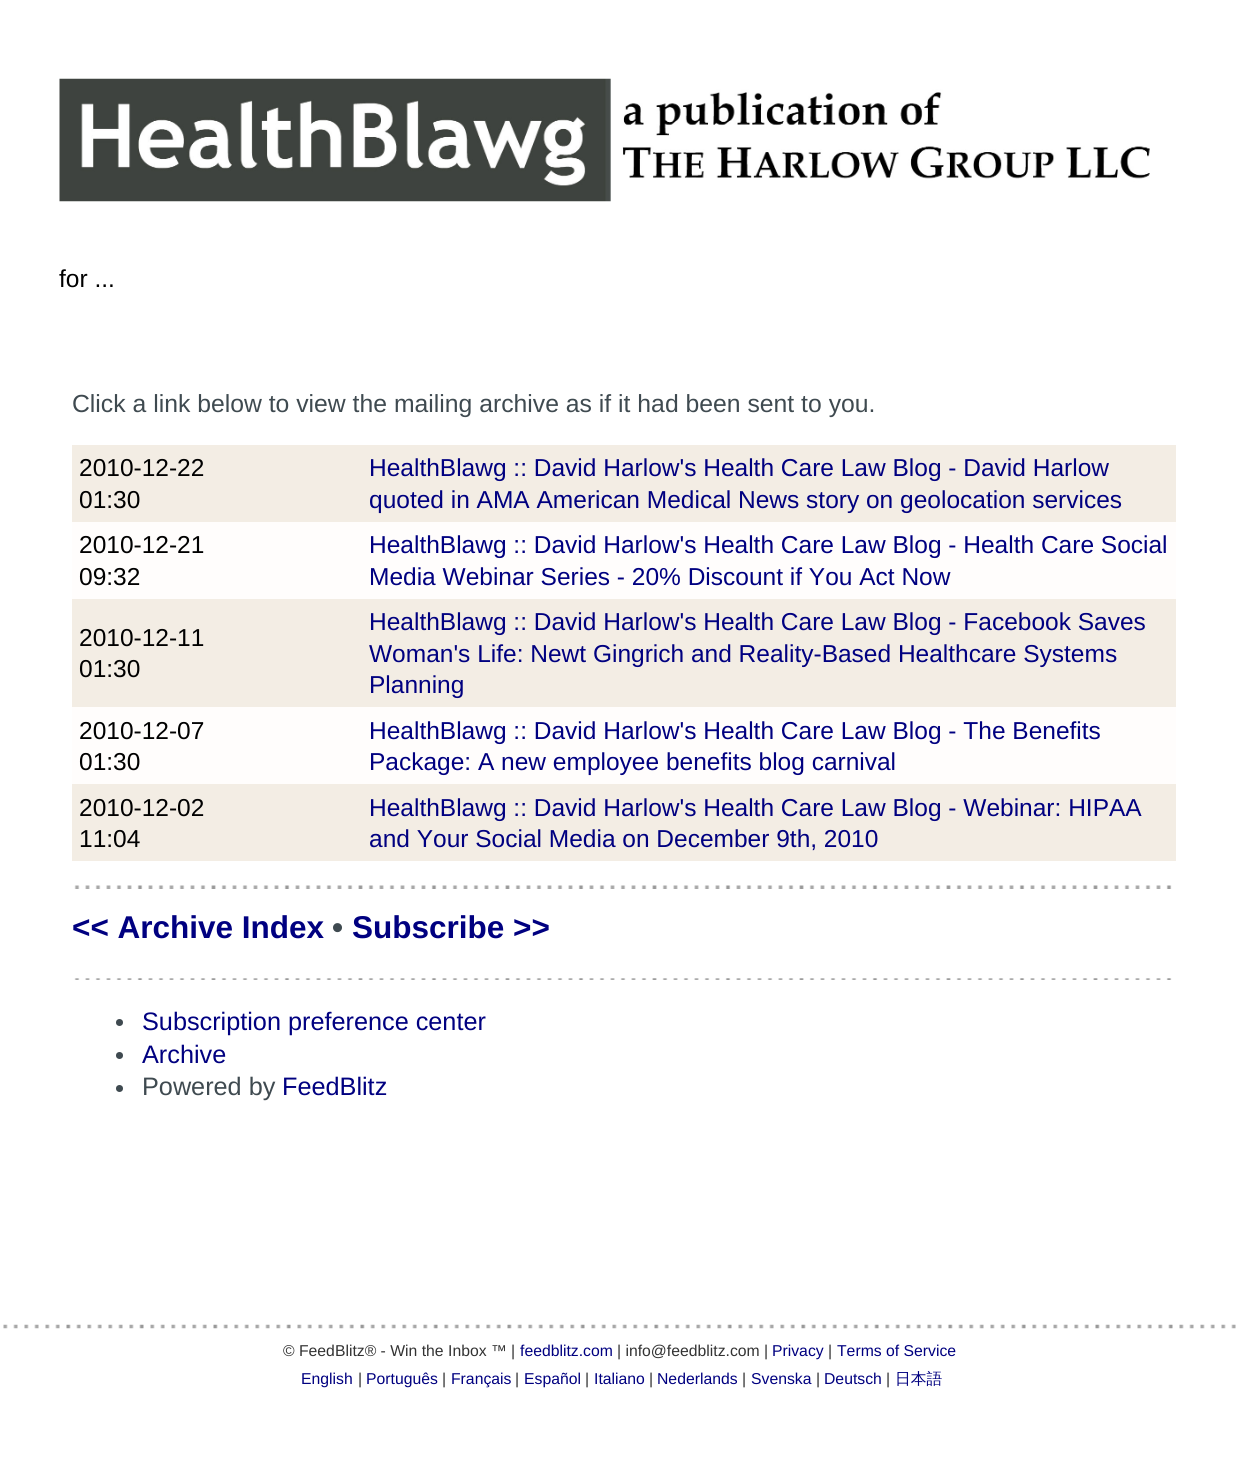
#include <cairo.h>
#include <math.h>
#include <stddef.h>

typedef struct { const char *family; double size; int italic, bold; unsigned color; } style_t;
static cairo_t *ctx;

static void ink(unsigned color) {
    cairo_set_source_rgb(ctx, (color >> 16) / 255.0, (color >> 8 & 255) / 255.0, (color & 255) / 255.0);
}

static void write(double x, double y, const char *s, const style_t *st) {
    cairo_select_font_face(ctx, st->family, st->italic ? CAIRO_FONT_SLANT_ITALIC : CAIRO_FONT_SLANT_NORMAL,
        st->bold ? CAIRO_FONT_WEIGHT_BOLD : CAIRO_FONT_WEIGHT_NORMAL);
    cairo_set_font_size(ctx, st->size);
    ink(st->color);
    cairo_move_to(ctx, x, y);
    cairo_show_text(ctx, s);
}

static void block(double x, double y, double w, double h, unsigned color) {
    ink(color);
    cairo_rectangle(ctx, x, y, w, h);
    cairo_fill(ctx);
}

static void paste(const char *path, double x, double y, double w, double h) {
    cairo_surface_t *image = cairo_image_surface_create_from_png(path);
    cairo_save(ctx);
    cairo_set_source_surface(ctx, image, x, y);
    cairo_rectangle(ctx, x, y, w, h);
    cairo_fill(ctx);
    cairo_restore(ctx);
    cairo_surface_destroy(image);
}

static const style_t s1 = {"Liberation Sans", 24.5, 0, 0, 0x000000};
static const style_t s2 = {"Liberation Sans", 24.75, 0, 0, 0x3f4a50};
static const style_t s3 = {"Liberation Sans", 24.5, 0, 0, 0x000080};
static const style_t s4 = {"Liberation Sans", 31.5, 0, 1, 0x000080};
static const style_t s5 = {"Liberation Sans", 31.5, 0, 1, 0x3f4a50};
static const style_t s6 = {"Liberation Sans", 25.25, 0, 0, 0x000080};
static const style_t s7 = {"Liberation Sans", 25.25, 0, 0, 0x3f4a50};
static const style_t s8 = {"Liberation Sans", 15.75, 0, 0, 0x333333};
static const style_t s9 = {"Liberation Sans", 15.75, 0, 0, 0x000080};
static const style_t s10 = {"WenQuanYi Zen Hei Medium", 15.75, 0, 0, 0x000080};

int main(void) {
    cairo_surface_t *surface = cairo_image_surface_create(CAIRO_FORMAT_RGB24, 1239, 1479);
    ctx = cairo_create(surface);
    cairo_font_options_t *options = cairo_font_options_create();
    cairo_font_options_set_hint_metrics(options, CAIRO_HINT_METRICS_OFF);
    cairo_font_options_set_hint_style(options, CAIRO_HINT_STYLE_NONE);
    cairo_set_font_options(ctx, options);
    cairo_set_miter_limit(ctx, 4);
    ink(0xffffff);
    cairo_paint(ctx);
    paste("pic1.png", 59, 78, 1091, 124);
    write(59, 287, "for ...", &s1);
    write(72, 412, "Click a link below to view the mailing archive as if it had been sent to you.", &s2);
    block(72, 445, 1104, 77, 0xf3ede4);
    write(79, 476, "2010-12-22", &s1);
    write(79, 508, "01:30", &s1);
    write(369, 476, "HealthBlawg :: David Harlow's Health Care Law Blog - David Harlow", &s3);
    write(369, 508, "quoted in AMA American Medical News story on geolocation services", &s3);
    block(72, 522, 1104, 77, 0xfffdfc);
    write(79, 553, "2010-12-21", &s1);
    write(79, 585, "09:32", &s1);
    write(369, 553, "HealthBlawg :: David Harlow's Health Care Law Blog - Health Care Social", &s3);
    write(369, 585, "Media Webinar Series - 20% Discount if You Act Now", &s3);
    block(72, 599, 1104, 108, 0xf3ede4);
    write(79, 646, "2010-12-11", &s1);
    write(79, 677, "01:30", &s1);
    write(369, 630, "HealthBlawg :: David Harlow's Health Care Law Blog - Facebook Saves", &s3);
    write(369, 662, "Woman's Life: Newt Gingrich and Reality-Based Healthcare Systems", &s3);
    write(369, 693, "Planning", &s3);
    block(72, 707, 1104, 77, 0xfffdfc);
    write(79, 739, "2010-12-07", &s1);
    write(79, 770, "01:30", &s1);
    write(369, 739, "HealthBlawg :: David Harlow's Health Care Law Blog - The Benefits", &s3);
    write(369, 770, "Package: A new employee benefits blog carnival", &s3);
    block(72, 784, 1104, 77, 0xf3ede4);
    write(79, 816, "2010-12-02", &s1);
    write(79, 847, "11:04", &s1);
    write(369, 816, "HealthBlawg :: David Harlow's Health Care Law Blog - Webinar: HIPAA", &s3);
    write(369, 847, "and Your Social Media on December 9th, 2010", &s3);
    paste("pic2.png", 74, 885, 1098, 4);
    write(72, 938, "<< Archive Index", &s4);
    write(332, 938, "•", &s5);
    write(352, 938, "Subscribe >>", &s4);
    paste("pic3.png", 74, 978, 1098, 2);
    ink(0x3f4a50);
    cairo_arc(ctx, 119.5, 1022.5, 3.5, 0, 2 * M_PI);
    cairo_fill(ctx);
    write(142, 1030, "Subscription preference center", &s6);
    ink(0x3f4a50);
    cairo_new_path(ctx);
    cairo_arc(ctx, 119.5, 1055.5, 3.5, 0, 2 * M_PI);
    cairo_fill(ctx);
    write(142, 1063, "Archive", &s6);
    ink(0x3f4a50);
    cairo_new_path(ctx);
    cairo_arc(ctx, 119.5, 1088.5, 3.5, 0, 2 * M_PI);
    cairo_fill(ctx);
    write(142, 1095, "Powered by", &s7);
    write(282, 1095, "FeedBlitz", &s6);
    paste("pic4.png", 3, 1324, 1233, 5);
    write(283, 1356, "© FeedBlitz® - Win the Inbox ™ |", &s8);
    write(520, 1356, "feedblitz.com", &s9);
    write(617, 1356, "| info@feedblitz.com |", &s8);
    write(772, 1356, "Privacy", &s9);
    write(828, 1356, "|", &s8);
    write(837, 1356, "Terms of Service", &s9);
    write(301, 1384, "English", &s9);
    write(358, 1384, "|", &s8);
    write(366, 1384, "Português", &s9);
    write(442, 1384, "|", &s8);
    write(451, 1384, "Français", &s9);
    write(515, 1384, "|", &s8);
    write(524, 1384, "Español", &s9);
    write(585, 1384, "|", &s8);
    write(594, 1384, "Italiano", &s9);
    write(649, 1384, "|", &s8);
    write(657, 1384, "Nederlands", &s9);
    write(742, 1384, "|", &s8);
    write(751, 1384, "Svenska", &s9);
    write(816, 1384, "|", &s8);
    write(824, 1384, "Deutsch", &s9);
    write(886, 1384, "|", &s8);
    write(895, 1384, "日本語", &s10);
    cairo_surface_write_to_png(surface, "screenshot.png");
    cairo_font_options_destroy(options);
    cairo_destroy(ctx);
    cairo_surface_destroy(surface);
    return 0;
}
